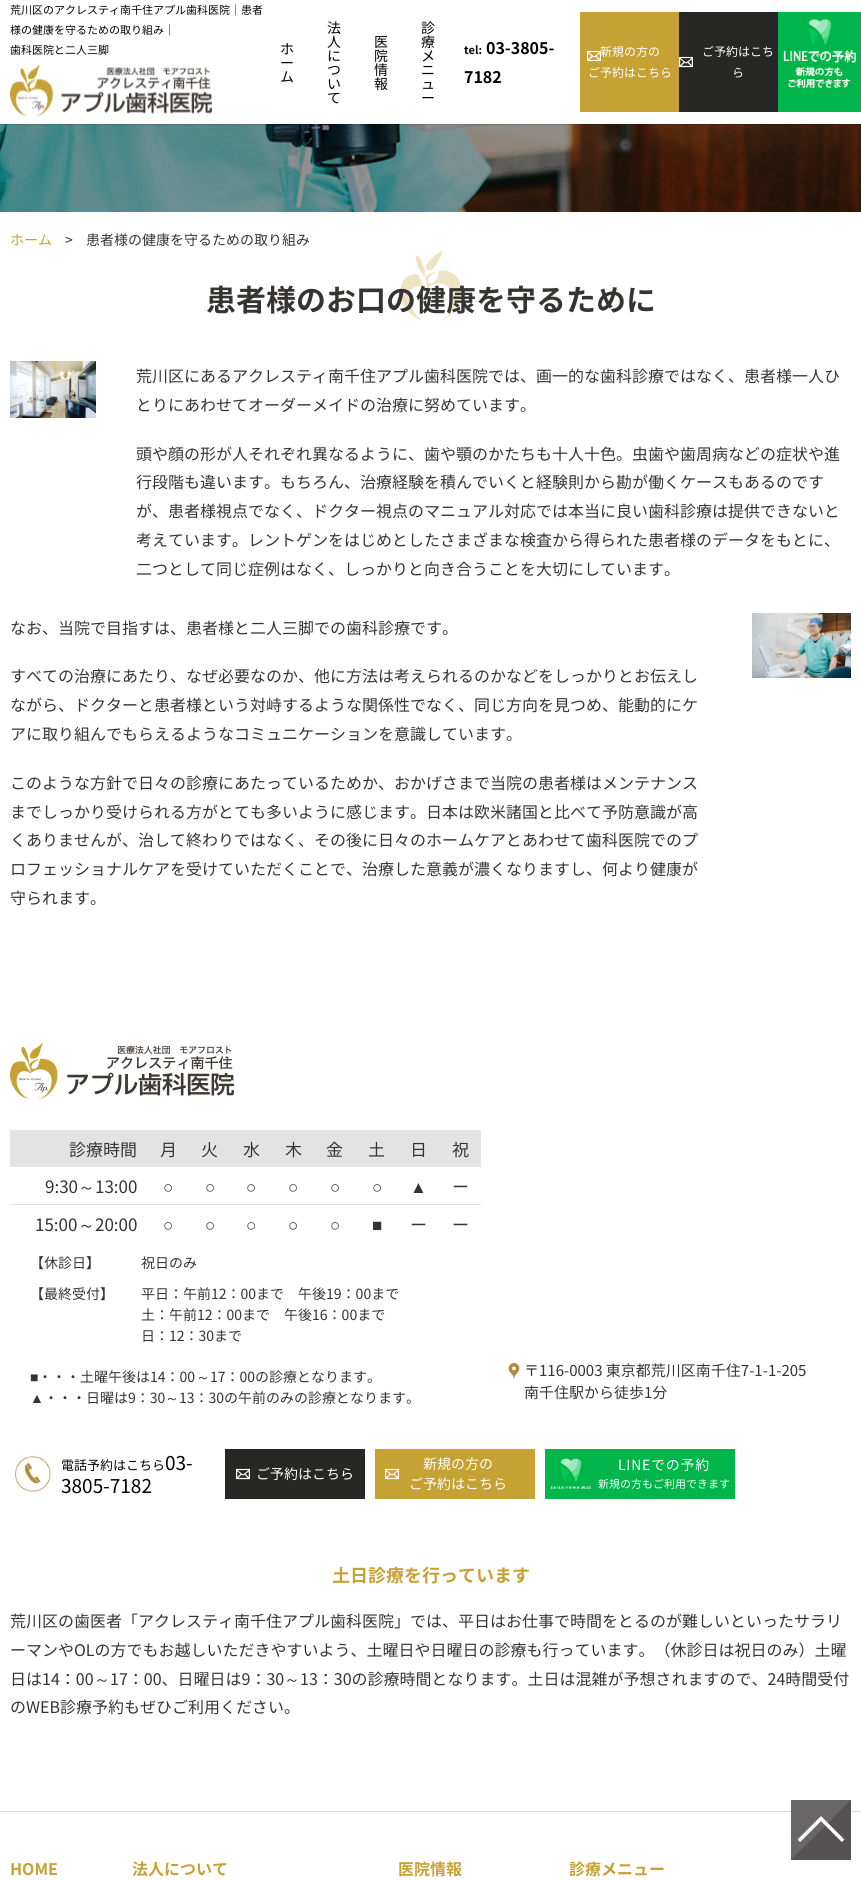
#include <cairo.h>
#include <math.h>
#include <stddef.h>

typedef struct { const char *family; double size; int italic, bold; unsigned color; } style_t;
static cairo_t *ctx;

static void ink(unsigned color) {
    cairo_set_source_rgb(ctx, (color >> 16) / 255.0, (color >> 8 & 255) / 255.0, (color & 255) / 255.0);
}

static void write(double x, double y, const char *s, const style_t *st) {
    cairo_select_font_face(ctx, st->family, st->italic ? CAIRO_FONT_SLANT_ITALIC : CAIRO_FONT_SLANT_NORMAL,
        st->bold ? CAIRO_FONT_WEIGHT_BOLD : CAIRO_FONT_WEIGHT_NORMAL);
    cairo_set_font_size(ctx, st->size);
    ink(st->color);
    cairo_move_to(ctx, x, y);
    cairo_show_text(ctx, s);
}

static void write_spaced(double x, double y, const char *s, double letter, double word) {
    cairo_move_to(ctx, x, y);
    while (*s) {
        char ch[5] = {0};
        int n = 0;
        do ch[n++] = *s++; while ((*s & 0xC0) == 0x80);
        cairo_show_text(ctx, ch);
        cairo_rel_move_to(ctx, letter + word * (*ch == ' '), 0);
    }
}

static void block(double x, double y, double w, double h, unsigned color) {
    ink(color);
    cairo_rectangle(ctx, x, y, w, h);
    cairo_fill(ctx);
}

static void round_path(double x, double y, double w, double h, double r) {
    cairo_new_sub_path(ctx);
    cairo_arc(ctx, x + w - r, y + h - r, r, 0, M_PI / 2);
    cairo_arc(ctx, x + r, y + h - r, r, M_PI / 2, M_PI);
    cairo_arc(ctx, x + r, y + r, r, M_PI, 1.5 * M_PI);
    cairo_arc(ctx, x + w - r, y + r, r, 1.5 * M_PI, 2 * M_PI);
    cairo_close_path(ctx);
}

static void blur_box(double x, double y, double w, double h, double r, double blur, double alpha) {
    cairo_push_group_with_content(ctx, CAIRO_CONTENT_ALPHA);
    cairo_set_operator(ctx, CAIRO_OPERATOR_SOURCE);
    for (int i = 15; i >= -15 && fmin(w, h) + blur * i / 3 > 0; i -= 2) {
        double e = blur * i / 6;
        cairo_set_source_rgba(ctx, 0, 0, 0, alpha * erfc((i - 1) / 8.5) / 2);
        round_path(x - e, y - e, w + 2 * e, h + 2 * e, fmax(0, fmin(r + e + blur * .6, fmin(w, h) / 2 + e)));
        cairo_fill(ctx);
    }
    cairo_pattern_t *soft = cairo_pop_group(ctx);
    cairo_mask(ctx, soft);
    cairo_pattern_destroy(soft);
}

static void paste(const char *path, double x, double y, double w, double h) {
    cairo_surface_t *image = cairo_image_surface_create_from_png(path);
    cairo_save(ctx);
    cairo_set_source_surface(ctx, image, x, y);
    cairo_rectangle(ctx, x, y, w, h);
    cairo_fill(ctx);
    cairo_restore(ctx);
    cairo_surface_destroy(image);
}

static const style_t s1 = {"Noto Sans JP", 11, 0, 0, 0x040000};
static const style_t s2 = {"Noto Sans JP", 14, 0, 0, 0x040000};
static const style_t s3 = {"Noto Sans JP", 11, 0, 1, 0x040000};
static const style_t s4 = {"Noto Sans JP", 16, 0, 1, 0x040000};
static const style_t s5 = {"Noto Sans JP", 12, 0, 0, 0xffffff};
static const style_t s6 = {"Noto Sans JP", 14, 0, 0, 0xc6a133};
static const style_t s7 = {"Noto Sans JP", 14, 0, 0, 0x363333};
static const style_t s8 = {"Noto Sans JP", 30, 0, 1, 0x363333};
static const style_t s9 = {"Noto Sans JP", 16, 0, 0, 0x363333};
static const style_t s10 = {"Noto Sans JP", 17, 0, 0, 0x363333};
static const style_t s11 = {"WenQuanYi Zen Hei Medium", 17, 0, 0, 0x363333};
static const style_t s12 = {"Liberation Sans", 17, 0, 0, 0x363333};
static const style_t s13 = {"Liberation Sans", 14, 0, 0, 0x363333};
static const style_t s14 = {"WenQuanYi Zen Hei Medium", 14, 0, 0, 0x363333};
static const style_t s15 = {"Noto Sans JP", 15, 0, 0, 0x363333};
static const style_t s16 = {"Noto Sans JP", 13, 0, 0, 0x040000};
static const style_t s17 = {"Noto Sans JP", 19, 0, 0, 0x040000};
static const style_t s18 = {"Noto Sans JP", 14, 0, 0, 0xffffff};
static const style_t s19 = {"Noto Sans JP", 11, 0, 0, 0xffffff};
static const style_t s20 = {"Noto Sans JP", 18, 0, 1, 0xc6a133};
static const style_t s21 = {"WenQuanYi Zen Hei Medium", 16, 0, 0, 0x363333};
static const style_t s22 = {"Noto Sans JP", 16, 0, 1, 0xc6a133};

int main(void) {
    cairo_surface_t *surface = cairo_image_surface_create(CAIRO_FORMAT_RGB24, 861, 1880);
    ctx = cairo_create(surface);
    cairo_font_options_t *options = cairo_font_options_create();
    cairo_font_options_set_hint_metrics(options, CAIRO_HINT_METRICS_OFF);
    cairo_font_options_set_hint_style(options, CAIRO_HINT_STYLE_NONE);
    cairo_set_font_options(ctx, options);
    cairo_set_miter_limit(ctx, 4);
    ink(0xffffff);
    cairo_paint(ctx);
    paste("pic5.png", 0, 124, 861, 88);
    ink(0x000000);
    blur_box(1, 1, 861, 124, 0, 0.5, 0.15);
    block(0, 0, 861, 124, 0xffffff);
    write(10, 14, "荒川区のアクレスティ南千住アプル歯科医院｜患者", &s1);
    write(10, 34, "様の健康を守るための取り組み｜", &s1);
    write(10, 54, "歯科医院と二人三脚", &s1);
    paste("pic1.png", 10, 64, 202, 53);
    write(280, 54, "ホ", &s2);
    write(280, 68, "ー", &s2);
    write(280, 82, "ム", &s2);
    write(327, 33, "法", &s2);
    write(327, 47, "人", &s2);
    write(327, 61, "に", &s2);
    write(327, 75, "つ", &s2);
    write(327, 89, "い", &s2);
    write(327, 103, "て", &s2);
    write(374, 47, "医", &s2);
    write(374, 61, "院", &s2);
    write(374, 75, "情", &s2);
    write(374, 89, "報", &s2);
    write(421, 33, "診", &s2);
    write(421, 47, "療", &s2);
    write(421, 61, "メ", &s2);
    write(421, 75, "ニ", &s2);
    write(421, 89, "ュ", &s2);
    write(421, 103, "ー", &s2);
    write(464, 54, "tel:", &s3);
    write(486, 54, "03-3805-", &s4);
    write(464, 83, "7182", &s4);
    block(580, 12, 99, 100, 0xc6a133);
    write(600, 56, "新規の方の", &s5);
    write(588, 77, "ご予約はこちら", &s5);
    paste("pic2.png", 587, 50, 14, 12);
    block(679, 12, 99, 100, 0x272726);
    write(702, 56, "ご予約はこち", &s5);
    paste("pic3.png", 679, 56, 14, 12);
    write(732, 77, "ら", &s5);
    block(778, 12, 83, 100, 0x00b549);
    paste("pic4.png", 783, 19, 73, 69);
    write(10, 245, "ホーム", &s6);
    write(65, 245, ">", &s7);
    write(86, 245, "患者様の健康を守るための取り組み", &s7);
    paste("pic6.png", 400, 250, 61, 72);
    write(206, 311, "患者様のお口の健康を守るために", &s8);
    paste("pic7.png", 10, 361, 86, 57);
    write(136, 382, "荒川区にあるアクレスティ南千住アプル歯科医院では、画一的な歯科診療ではなく、患者様一人ひ", &s9);
    write(136, 411, "とりにあわせてオーダーメイドの治療に努めています。", &s9);
    write(136, 460, "頭や顔の形が人それぞれ異なるように、歯や顎のかたちも十人十色。虫歯や歯周病などの症状や進", &s9);
    write(136, 488, "行段階も違います。もちろん、治療経験を積んでいくと経験則から勘が働くケースもあるのです", &s9);
    write(136, 517, "が、患者様視点でなく、ドクター視点のマニュアル対応では本当に良い歯科診療は提供できないと", &s9);
    write(136, 546, "考えています。レントゲンをはじめとしたさまざまな検査から得られた患者様のデータをもとに、", &s9);
    write(136, 575, "二つとして同じ症例はなく、しっかりと向き合うことを大切にしています。", &s9);
    write(10, 634, "なお、当院で目指すは、患者様と二人三脚での歯科診療です。", &s9);
    write(10, 682, "すべての治療にあたり、なぜ必要なのか、他に方法は考えられるのかなどをしっかりとお伝えし", &s9);
    write(10, 711, "ながら、ドクターと患者様という対峙するような関係性でなく、同じ方向を見つめ、能動的にケ", &s9);
    write(10, 740, "アに取り組んでもらえるようなコミュニケーションを意識しています。", &s9);
    write(10, 789, "このような方針で日々の診療にあたっているためか、おかげさまで当院の患者様はメンテナンス", &s9);
    write(10, 818, "までしっかり受けられる方がとても多いように感じます。日本は欧米諸国と比べて予防意識が高", &s9);
    write(10, 846, "くありませんが、治して終わりではなく、その後に日々のホームケアとあわせて歯科医院でのプ", &s9);
    write(10, 875, "ロフェッショナルケアを受けていただくことで、治療した意義が濃くなりますし、何より健康が", &s9);
    write(10, 904, "守られます。", &s9);
    paste("pic8.png", 752, 613, 99, 65);
    paste("pic9.png", 10, 1042, 224, 57);
    block(10, 1130, 471, 37, 0xe3e3e3);
    write(69, 1156, "診療時間", &s10);
    write(160, 1156, "月", &s10);
    write(201, 1156, "火", &s10);
    write(243, 1156, "水", &s10);
    write(285, 1156, "木", &s10);
    write(326, 1156, "金", &s10);
    write(368, 1156, "土", &s10);
    write(410, 1156, "日", &s10);
    write(452, 1156, "祝", &s10);
    block(10, 1204, 471, 1, 0xe3e3e3);
    write(45, 1193, "9:30", &s10);
    write(78, 1193, "～", &s11);
    write(95, 1193, "13:00", &s10);
    write(163, 1193, "○", &s12);
    write(205, 1193, "○", &s12);
    write(246, 1193, "○", &s12);
    write(288, 1193, "○", &s12);
    write(330, 1193, "○", &s12);
    write(372, 1193, "○", &s12);
    write(410, 1193, "▲", &s12);
    write(452, 1193, "ー", &s10);
    write(35, 1231, "15:00", &s10);
    write(78, 1231, "～", &s11);
    write(95, 1231, "20:00", &s10);
    write(163, 1231, "○", &s12);
    write(205, 1231, "○", &s12);
    write(246, 1231, "○", &s12);
    write(288, 1231, "○", &s12);
    write(330, 1231, "○", &s12);
    write(372, 1231, "■", &s12);
    write(410, 1231, "ー", &s10);
    write(452, 1231, "ー", &s10);
    write(30, 1268, "【休診日】", &s7);
    write(141, 1268, "祝日のみ", &s7);
    write(30, 1299, "【最終受付】", &s7);
    write(141, 1299, "平日：午前12：00まで　午後19：00まで", &s7);
    write(141, 1320, "土：午前12：00まで　午後16：00まで", &s7);
    write(141, 1341, "日：12：30まで", &s7);
    write(30, 1382, "■", &s13);
    write(38, 1382, "・・・土曜午後は14：00", &s7);
    write(196, 1382, "～", &s14);
    write(210, 1382, "17：00の診療となります。", &s7);
    write(30, 1403, "▲", &s13);
    write(44, 1403, "・・・日曜は9：30", &s7);
    write(165, 1403, "～", &s14);
    write(179, 1403, "13：30の午前のみの診療となります。", &s7);
    paste("pic10.png", 508, 1363, 12, 16);
    write(524, 1376, "〒116-0003 東京都荒川区南千住7-1-1-205", &s15);
    write(524, 1398, "南千住駅から徒歩1分", &s15);
    paste("pic11.png", 15, 1456, 36, 36);
    write(61, 1470, "電話予約はこちら", &s16);
    write(165, 1470, "03-", &s17);
    write(61, 1493, "3805-7182", &s17);
    block(225, 1449, 140, 50, 0x272726);
    paste("pic12.png", 236, 1468, 14, 12);
    write(256, 1479, "ご予約はこちら", &s18);
    block(375, 1449, 160, 50, 0xc6a133);
    paste("pic13.png", 385, 1468, 14, 12);
    write(423, 1469, "新規の方の", &s18);
    write(409, 1489, "ご予約はこちら", &s18);
    block(545, 1449, 190, 50, 0x00b549);
    paste("pic14.png", 551, 1458, 40, 31);
    ink(0xffffff);
    write_spaced(618, 1470, "LINEでの予約", 0.75, 0);
    write(598, 1488, "新規の方もご利用できます", &s19);
    write(332, 1582, "土日診療を行っています", &s20);
    write(10, 1627, "荒川区の歯医者「アクレスティ南千住アプル歯科医院」では、平日はお仕事で時間をとるのが難しいといったサラリ", &s9);
    write(10, 1656, "ーマンやOLの方でもお越しいただきやすいよう、土曜日や日曜日の診療も行っています。（休診日は祝日のみ）土曜", &s9);
    write(10, 1685, "日は14：00", &s9);
    write(94, 1685, "～", &s21);
    write(110, 1685, "17：00、日曜日は9：30", &s9);
    write(284, 1685, "～", &s21);
    write(300, 1685, "13：30の診療時間となります。土日は混雑が予想されますので、24時間受付", &s9);
    write(10, 1713, "のWEB診療予約もぜひご利用ください。", &s9);
    block(0, 1811, 861, 1, 0xd9d9d9);
    paste("pic15.png", 791, 1800, 60, 60);
    write(10, 1875, "HOME", &s22);
    write(132, 1875, "法人について", &s22);
    write(398, 1875, "医院情報", &s22);
    write(569, 1875, "診療メニュー", &s22);
    cairo_surface_write_to_png(surface, "screenshot.png");
    cairo_font_options_destroy(options);
    cairo_destroy(ctx);
    cairo_surface_destroy(surface);
    return 0;
}
